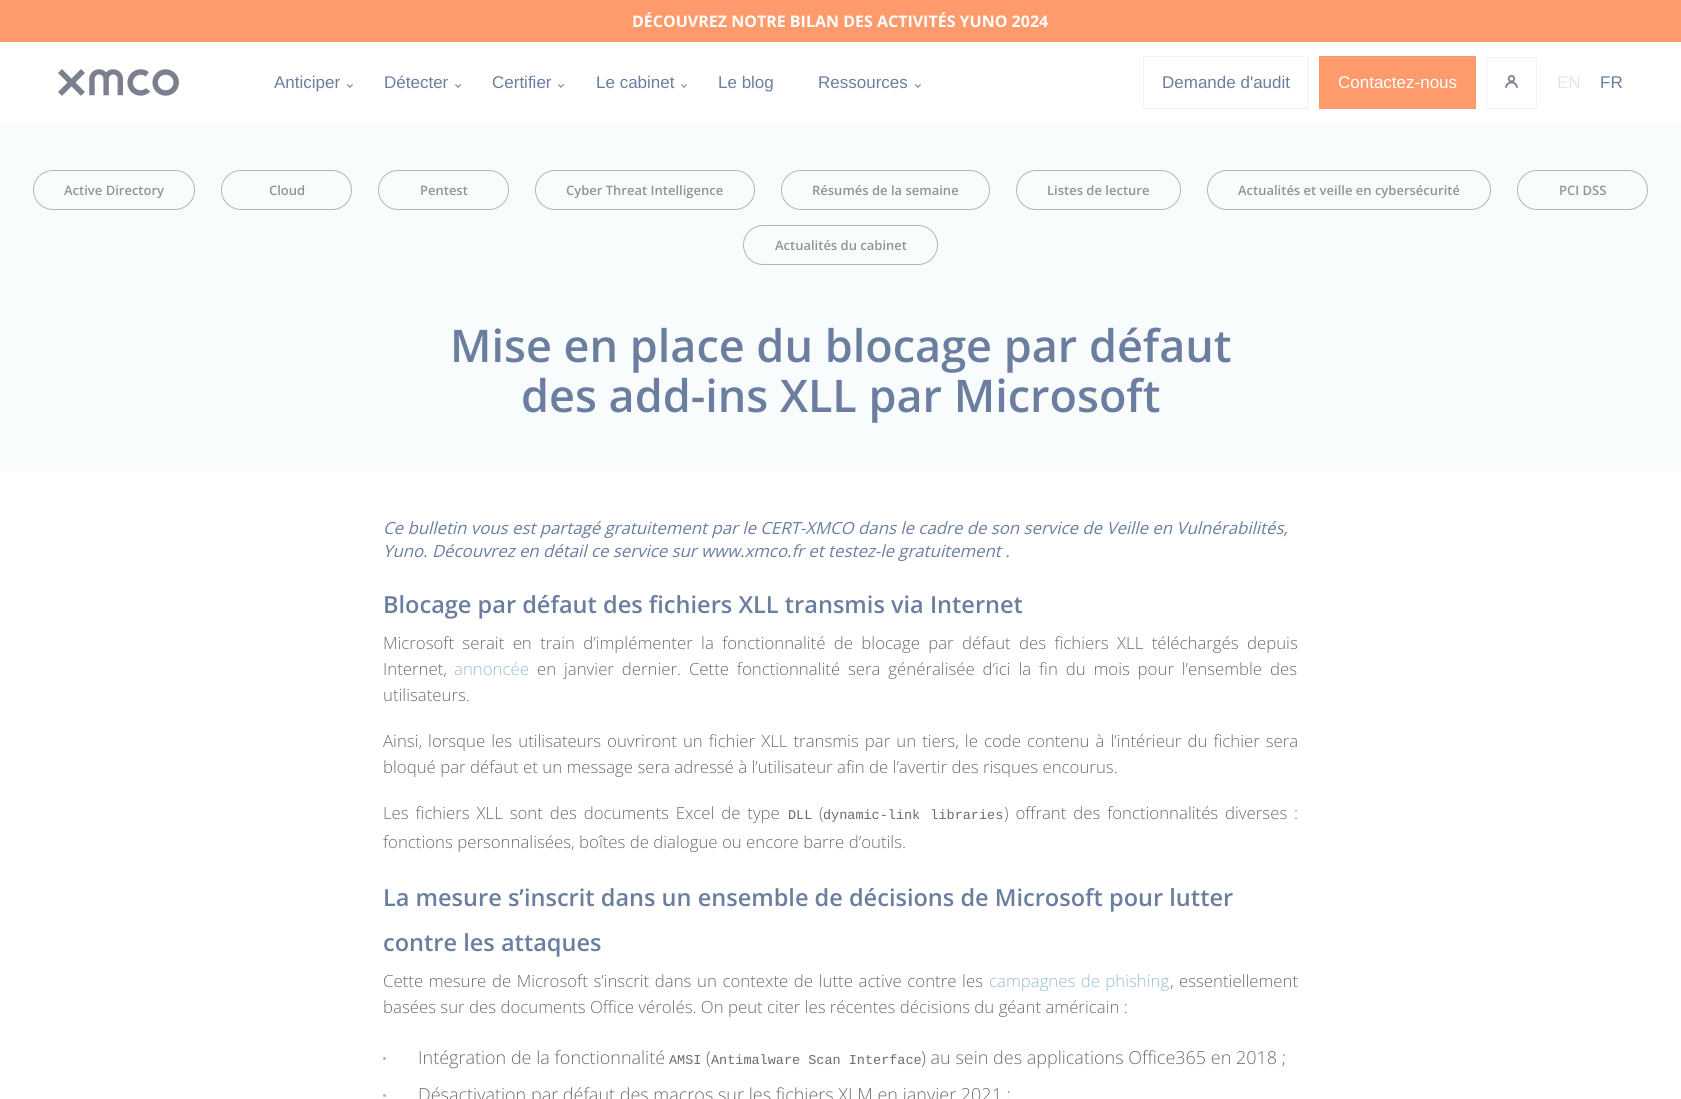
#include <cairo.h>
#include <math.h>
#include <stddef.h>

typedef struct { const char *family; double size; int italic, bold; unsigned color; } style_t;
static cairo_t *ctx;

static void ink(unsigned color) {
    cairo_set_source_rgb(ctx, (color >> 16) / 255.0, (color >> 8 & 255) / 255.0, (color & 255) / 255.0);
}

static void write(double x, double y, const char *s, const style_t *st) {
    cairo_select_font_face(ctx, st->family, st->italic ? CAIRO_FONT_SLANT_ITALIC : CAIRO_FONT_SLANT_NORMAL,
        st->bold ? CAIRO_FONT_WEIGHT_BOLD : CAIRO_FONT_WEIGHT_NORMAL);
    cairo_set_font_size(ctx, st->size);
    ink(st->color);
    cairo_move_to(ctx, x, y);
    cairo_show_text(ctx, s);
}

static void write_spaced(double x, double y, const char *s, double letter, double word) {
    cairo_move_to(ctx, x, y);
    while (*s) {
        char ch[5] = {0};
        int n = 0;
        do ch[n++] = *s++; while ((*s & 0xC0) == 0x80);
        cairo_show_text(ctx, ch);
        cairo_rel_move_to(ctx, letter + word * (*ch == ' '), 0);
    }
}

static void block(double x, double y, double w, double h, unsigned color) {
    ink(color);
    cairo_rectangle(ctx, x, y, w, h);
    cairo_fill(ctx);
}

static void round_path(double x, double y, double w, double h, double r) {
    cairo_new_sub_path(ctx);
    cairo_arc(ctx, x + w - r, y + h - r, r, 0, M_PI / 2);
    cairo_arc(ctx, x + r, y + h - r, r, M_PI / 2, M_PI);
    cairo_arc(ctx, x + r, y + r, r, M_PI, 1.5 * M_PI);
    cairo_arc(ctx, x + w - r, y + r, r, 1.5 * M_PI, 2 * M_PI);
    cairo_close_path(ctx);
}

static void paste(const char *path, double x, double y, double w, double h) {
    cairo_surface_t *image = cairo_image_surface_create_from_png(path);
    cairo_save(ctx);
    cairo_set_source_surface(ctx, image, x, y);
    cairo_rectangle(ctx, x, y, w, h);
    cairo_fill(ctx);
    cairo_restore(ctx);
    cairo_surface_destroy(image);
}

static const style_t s1 = {"Open Sans", 16, 0, 1, 0xffffff};
static const style_t s2 = {"Liberation Sans", 17, 0, 0, 0x6b7ea0};
static const style_t s3 = {"Liberation Sans", 17, 0, 0, 0xffffff};
static const style_t s4 = {"Liberation Sans", 17, 0, 0, 0xe1e5ec};
static const style_t s5 = {"Open Sans SemiBold", 13, 0, 0, 0x939393};
static const style_t s6 = {"Open Sans SemiBold", 45, 0, 0, 0x6b7ea0};
static const style_t s7 = {"Open Sans", 16.8, 1, 0, 0x6b7ea0};
static const style_t s8 = {"Open Sans SemiBold", 23.55, 0, 0, 0x6b7ea0};
static const style_t s9 = {"Open Sans Light", 16.8, 0, 0, 0x6b6b6b};
static const style_t s10 = {"Open Sans Light", 16.8, 0, 0, 0x94bfcf};
static const style_t s11 = {"Liberation Mono", 13.5, 0, 0, 0x6b6b6b};
static const style_t s12 = {"Open Sans Light", 18, 0, 0, 0x6b6b6b};

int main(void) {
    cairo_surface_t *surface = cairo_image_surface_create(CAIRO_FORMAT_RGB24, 1681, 1099);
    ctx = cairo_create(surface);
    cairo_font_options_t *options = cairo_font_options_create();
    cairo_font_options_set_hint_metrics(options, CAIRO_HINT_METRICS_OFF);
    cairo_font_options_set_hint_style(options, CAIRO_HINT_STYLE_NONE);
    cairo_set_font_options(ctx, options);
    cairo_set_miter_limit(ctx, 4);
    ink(0xffffff);
    cairo_paint(ctx);
    block(0, 0, 1681, 42, 0xfe9a6b);
    write(632, 27, "DÉCOUVREZ NOTRE BILAN DES ACTIVITÉS YUNO 2024", &s1);
    paste("pic1.png", 58, 69, 121, 27);
    write(274, 88, "Anticiper", &s2);
    paste("pic2.png", 347, 84, 6, 4);
    write(384, 88, "Détecter", &s2);
    paste("pic2.png", 455, 84, 6, 4);
    write(492, 88, "Certifier", &s2);
    paste("pic2.png", 558, 84, 6, 4);
    write(596, 88, "Le cabinet", &s2);
    paste("pic2.png", 681, 84, 6, 4);
    write(718, 88, "Le blog", &s2);
    write(818, 88, "Ressources", &s2);
    paste("pic2.png", 915, 84, 6, 4);
    cairo_rectangle(ctx, 1143.5, 56.5, 165, 52);
    ink(0xf3f3f5);
    cairo_set_line_width(ctx, 1);
    cairo_stroke(ctx);
    write(1162, 88, "Demande d'audit", &s2);
    ink(0xfe9a6b);
    cairo_rectangle(ctx, 1319.5, 56.5, 156, 52);
    cairo_fill_preserve(ctx);
    ink(0xf3976e);
    cairo_stroke(ctx);
    write(1338, 88, "Contactez-nous", &s3);
    cairo_rectangle(ctx, 1486.5, 57.5, 50, 51);
    ink(0xf3f3f5);
    cairo_stroke(ctx);
    paste("pic3.png", 1505, 75, 13, 13);
    write(1557, 88, "EN", &s4);
    write(1600, 88, "FR", &s2);
    block(0, 123, 1681, 348, 0xf9fcfd);
    round_path(33.5, 170.5, 161, 39, 19.5);
    ink(0xb5b4bc);
    cairo_stroke(ctx);
    write(64, 195, "Active Directory", &s5);
    round_path(221.5, 170.5, 130, 39, 19.5);
    ink(0xb5b4bc);
    cairo_stroke(ctx);
    write(269, 195, "Cloud", &s5);
    round_path(378.5, 170.5, 130, 39, 19.5);
    ink(0xb5b4bc);
    cairo_stroke(ctx);
    write(420, 195, "Pentest", &s5);
    round_path(535.5, 170.5, 219, 39, 19.5);
    ink(0xb5b4bc);
    cairo_stroke(ctx);
    write(566, 195, "Cyber Threat Intelligence", &s5);
    round_path(781.5, 170.5, 208, 39, 19.5);
    ink(0xb5b4bc);
    cairo_stroke(ctx);
    write(812, 195, "Résumés de la semaine", &s5);
    round_path(1016.5, 170.5, 164, 39, 19.5);
    ink(0xb5b4bc);
    cairo_stroke(ctx);
    write(1047, 195, "Listes de lecture", &s5);
    round_path(1207.5, 170.5, 283, 39, 19.5);
    ink(0xb5b4bc);
    cairo_stroke(ctx);
    write(1238, 195, "Actualités et veille en cybersécurité", &s5);
    round_path(1517.5, 170.5, 130, 39, 19.5);
    ink(0xb5b4bc);
    cairo_stroke(ctx);
    write(1559, 195, "PCI DSS", &s5);
    round_path(743.5, 225.5, 194, 39, 19.5);
    ink(0xb5b4bc);
    cairo_stroke(ctx);
    write(775, 250, "Actualités du cabinet", &s5);
    write(450, 362, "Mise en place du blocage par défaut", &s6);
    write(521, 412, "des add-ins XLL par Microsoft", &s6);
    write(383, 534, "Ce bulletin vous est partagé gratuitement par le CERT-XMCO dans le cadre de son service de Veille en Vulnérabilités,", &s7);
    write(383, 557, "Yuno. Découvrez en détail ce service sur www.xmco.fr et testez-le gratuitement .", &s7);
    write(383, 613, "Blocage par défaut des fichiers XLL transmis via Internet", &s8);
    cairo_select_font_face(ctx, "Open Sans Light", CAIRO_FONT_SLANT_NORMAL, CAIRO_FONT_WEIGHT_NORMAL);
    cairo_set_font_size(ctx, 16.8);
    ink(0x6b6b6b);
    write_spaced(383, 649, "Microsoft serait en train d’implémenter la fonctionnalité de blocage par défaut des fichiers XLL téléchargés depuis", 0, 4);
    write(383, 675, "Internet,", &s9);
    write(454, 675, "annoncée", &s10);
    ink(0x6b6b6b);
    write_spaced(537, 675, "en janvier dernier. Cette fonctionnalité sera généralisée d’ici la fin du mois pour l’ensemble des", 0, 3.5);
    write(383, 701, "utilisateurs.", &s9);
    write_spaced(383, 747, "Ainsi, lorsque les utilisateurs ouvriront un fichier XLL transmis par un tiers, le code contenu à l’intérieur du fichier sera", 0, 1.7);
    write(383, 773, "bloqué par défaut et un message sera adressé à l’utilisateur afin de l’avertir des risques encourus.", &s9);
    write_spaced(383, 819, "Les fichiers XLL sont des documents Excel de type", 0, 2.5);
    write(788, 819, "DLL", &s11);
    write(819, 819, "(", &s9);
    cairo_select_font_face(ctx, "Liberation Mono", CAIRO_FONT_SLANT_NORMAL, CAIRO_FONT_WEIGHT_NORMAL);
    cairo_set_font_size(ctx, 13.5);
    write_spaced(823, 819, "dynamic-link libraries", 0, 2);
    cairo_select_font_face(ctx, "Open Sans Light", CAIRO_FONT_SLANT_NORMAL, CAIRO_FONT_WEIGHT_NORMAL);
    cairo_set_font_size(ctx, 16.8);
    write_spaced(1004, 819, ") offrant des fonctionnalités diverses :", 0, 2.5);
    write(383, 848, "fonctions personnalisées, boîtes de dialogue ou encore barre d’outils.", &s9);
    write(383, 906, "La mesure s’inscrit dans un ensemble de décisions de Microsoft pour lutter", &s8);
    write(383, 951, "contre les attaques", &s8);
    cairo_select_font_face(ctx, "Open Sans Light", CAIRO_FONT_SLANT_NORMAL, CAIRO_FONT_WEIGHT_NORMAL);
    cairo_set_font_size(ctx, 16.8);
    ink(0x6b6b6b);
    write_spaced(383, 987, "Cette mesure de Microsoft s’inscrit dans un contexte de lutte active contre les", 0, 1.25);
    ink(0x94bfcf);
    write_spaced(989, 987, "campagnes de phishing", 0, 1);
    ink(0x6b6b6b);
    write_spaced(1170, 987, ", essentiellement", 0, 1);
    write(383, 1013, "basées sur des documents Office vérolés. On peut citer les récentes décisions du géant américain :", &s9);
    ink(0x94bfcf);
    cairo_new_path(ctx);
    cairo_arc(ctx, 384.5, 1058.5, 1.5, 0, 2 * M_PI);
    cairo_fill(ctx);
    write(418, 1064, "Intégration de la fonctionnalité", &s12);
    write(669, 1064, "AMSI", &s11);
    write(706, 1064, "(", &s12);
    write(711, 1064, "Antimalware Scan Interface", &s11);
    write(921, 1064, ") au sein des applications Office365 en 2018 ;", &s12);
    ink(0x94bfcf);
    cairo_new_path(ctx);
    cairo_arc(ctx, 384.5, 1095.5, 1.5, 0, 2 * M_PI);
    cairo_fill(ctx);
    write(418, 1101, "Désactivation par défaut des macros sur les fichiers XLM en janvier 2021 ;", &s12);
    cairo_surface_write_to_png(surface, "screenshot.png");
    cairo_font_options_destroy(options);
    cairo_destroy(ctx);
    cairo_surface_destroy(surface);
    return 0;
}
